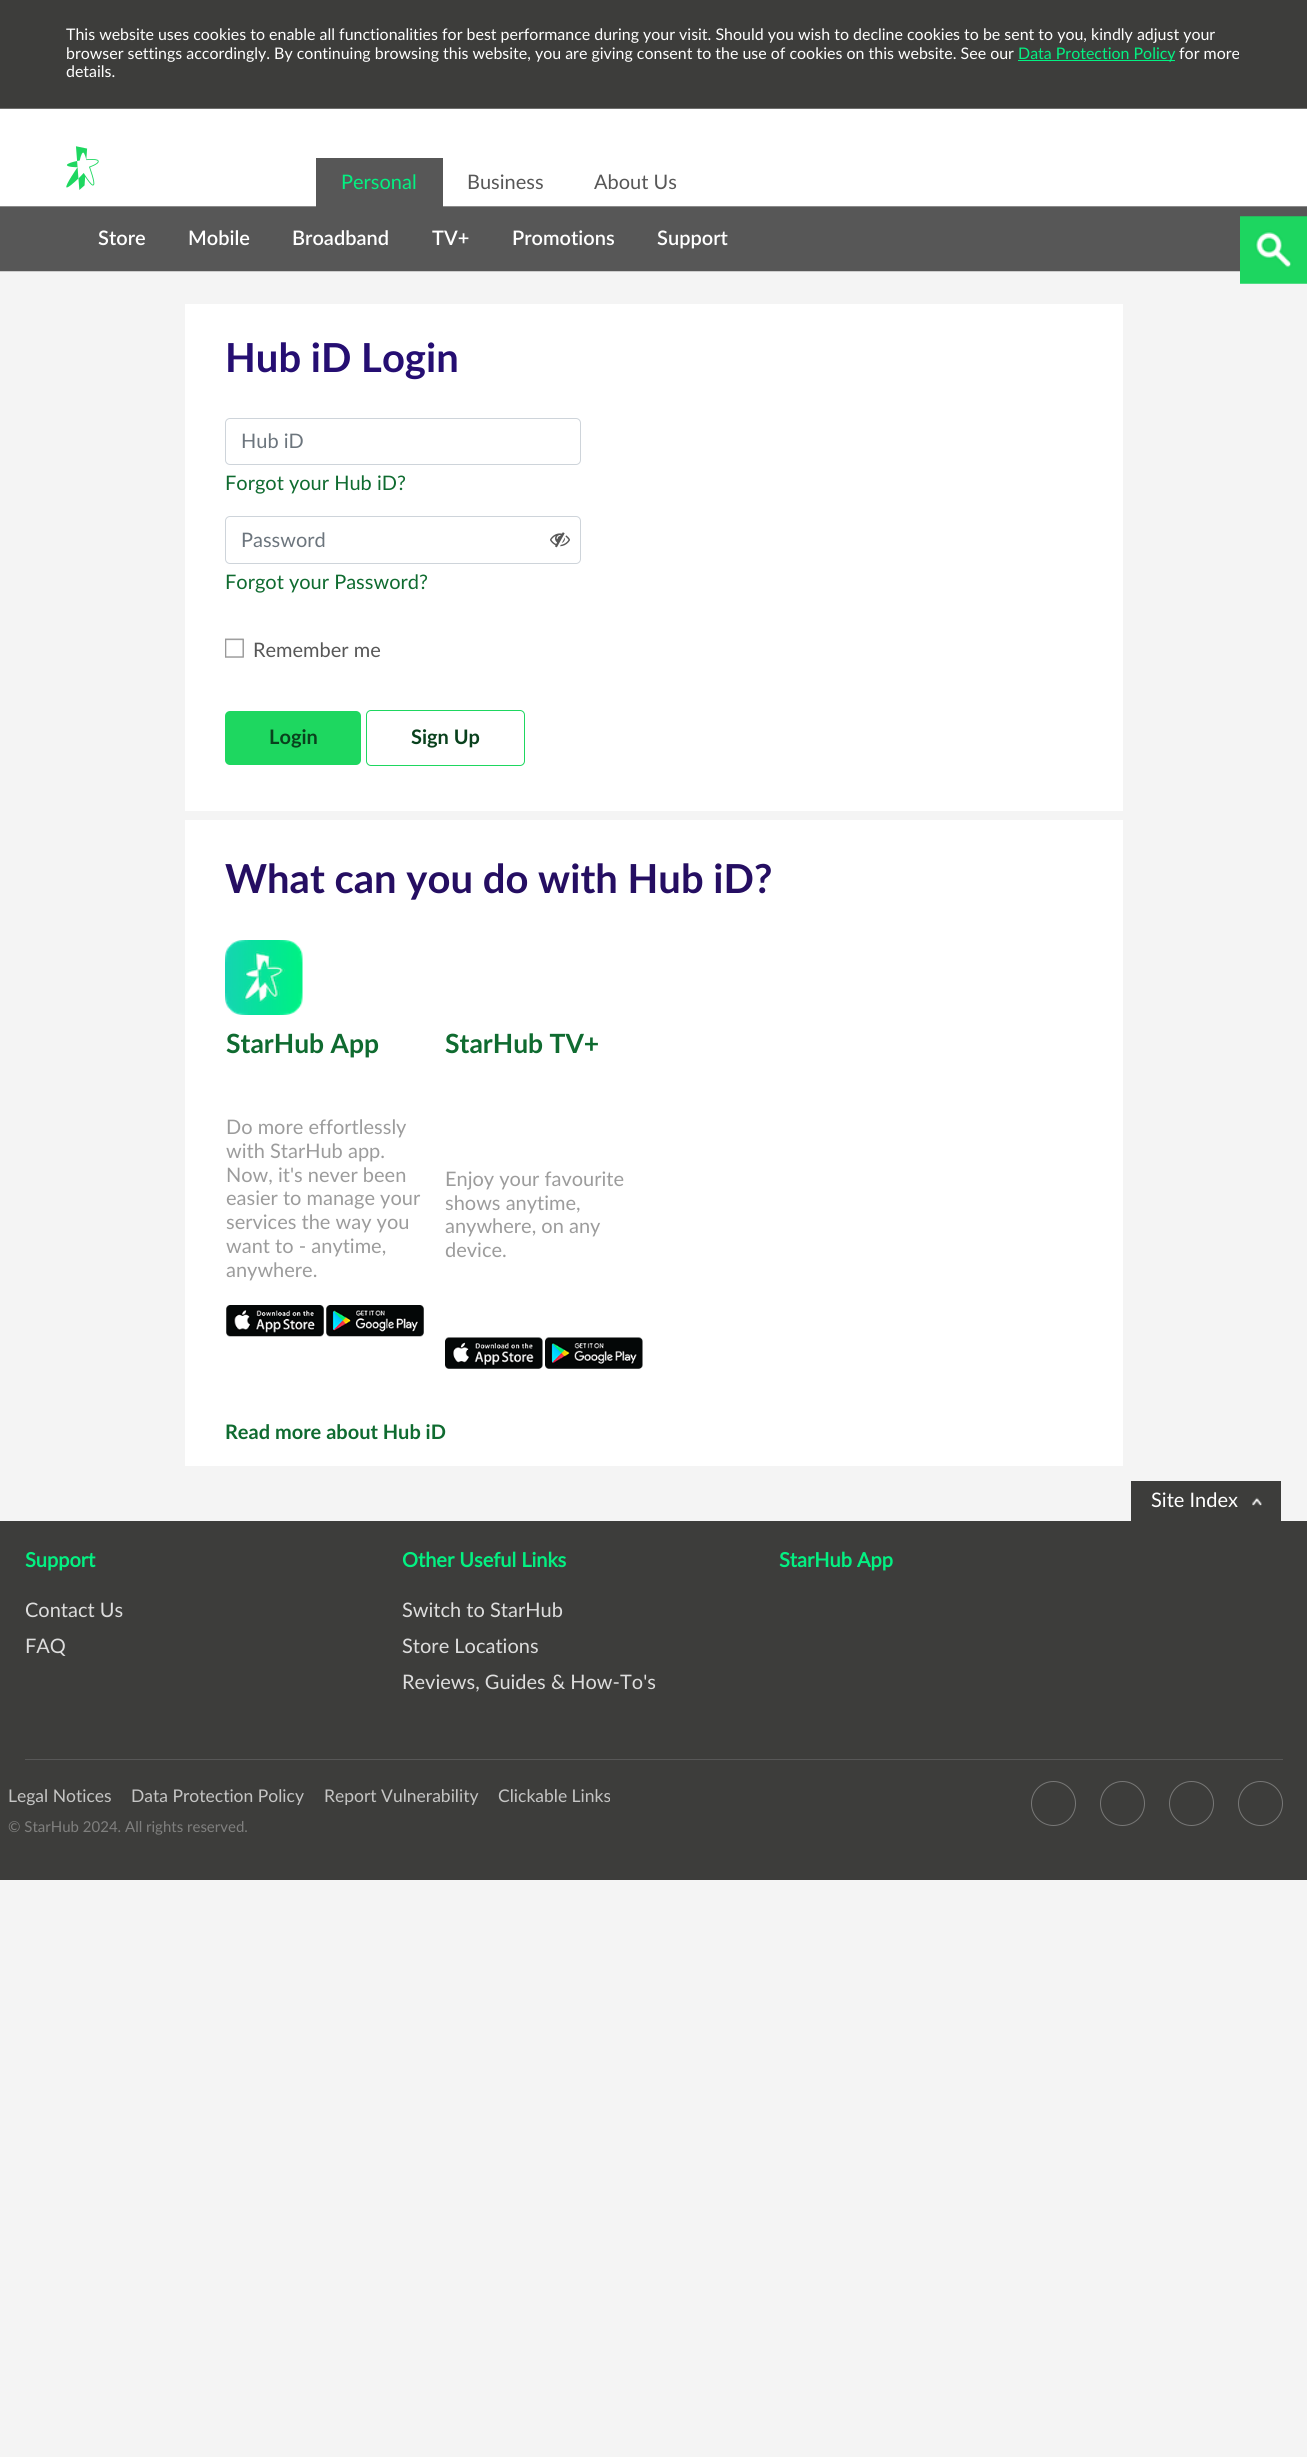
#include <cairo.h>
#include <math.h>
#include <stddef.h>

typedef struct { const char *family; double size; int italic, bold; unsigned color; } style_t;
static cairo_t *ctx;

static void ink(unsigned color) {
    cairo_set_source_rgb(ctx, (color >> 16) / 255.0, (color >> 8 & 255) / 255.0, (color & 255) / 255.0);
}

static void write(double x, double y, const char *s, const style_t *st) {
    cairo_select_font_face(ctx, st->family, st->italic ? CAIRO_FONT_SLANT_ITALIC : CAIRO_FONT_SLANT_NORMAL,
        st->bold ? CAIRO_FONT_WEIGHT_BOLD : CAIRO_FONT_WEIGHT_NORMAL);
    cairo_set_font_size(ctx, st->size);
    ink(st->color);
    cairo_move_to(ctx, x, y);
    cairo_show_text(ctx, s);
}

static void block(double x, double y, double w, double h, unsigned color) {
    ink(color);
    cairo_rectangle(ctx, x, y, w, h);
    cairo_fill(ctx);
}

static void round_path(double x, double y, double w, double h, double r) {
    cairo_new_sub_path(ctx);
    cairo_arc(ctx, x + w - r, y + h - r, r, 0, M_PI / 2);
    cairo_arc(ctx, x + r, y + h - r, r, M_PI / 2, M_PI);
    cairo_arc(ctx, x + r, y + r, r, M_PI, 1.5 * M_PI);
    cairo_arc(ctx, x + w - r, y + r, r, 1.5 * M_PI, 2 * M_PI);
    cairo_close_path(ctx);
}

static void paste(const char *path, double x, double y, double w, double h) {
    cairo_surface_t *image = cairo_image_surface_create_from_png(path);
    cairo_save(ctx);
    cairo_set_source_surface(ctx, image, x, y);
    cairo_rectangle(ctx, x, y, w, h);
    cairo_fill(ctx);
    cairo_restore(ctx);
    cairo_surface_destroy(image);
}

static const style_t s1 = {"Lato", 15.95, 0, 0, 0xffffff};
static const style_t s2 = {"Lato", 15.95, 0, 0, 0x03f182};
static const style_t s3 = {"Lato", 20, 0, 0, 0x03f182};
static const style_t s4 = {"Lato SemiBold", 20, 0, 0, 0xffffff};
static const style_t s5 = {"Lato", 20, 0, 0, 0x575757};
static const style_t s6 = {"Lato", 40, 0, 1, 0x250e72};
static const style_t s7 = {"Lato", 20, 0, 0, 0x6c757d};
static const style_t s8 = {"Lato", 20, 0, 0, 0x0f6b30};
static const style_t s9 = {"Lato", 20, 0, 1, 0x09411d};
static const style_t s10 = {"Lato", 40, 0, 1, 0x250e62};
static const style_t s11 = {"Lato", 26.5, 0, 1, 0x0f6b30};
static const style_t s12 = {"Lato", 20, 0, 0, 0x9c9c9c};
static const style_t s13 = {"Lato", 20, 0, 1, 0x0f6b30};
static const style_t s14 = {"Lato", 20, 0, 0, 0xffffff};
static const style_t s15 = {"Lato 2", 20, 0, 1, 0x03f182};
static const style_t s16 = {"Lato", 20, 0, 0, 0xdddddd};
static const style_t s17 = {"Lato", 17.5, 0, 0, 0xc5c5c4};
static const style_t s18 = {"Lato", 15, 0, 0, 0x7f7f7e};

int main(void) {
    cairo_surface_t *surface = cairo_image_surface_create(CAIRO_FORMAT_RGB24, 1307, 2457);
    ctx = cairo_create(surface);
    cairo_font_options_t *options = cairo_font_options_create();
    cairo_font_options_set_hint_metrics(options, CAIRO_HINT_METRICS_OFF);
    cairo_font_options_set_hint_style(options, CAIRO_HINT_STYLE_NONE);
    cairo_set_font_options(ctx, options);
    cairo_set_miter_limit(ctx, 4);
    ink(0xf4f4f4);
    cairo_paint(ctx);
    block(0, 0, 1307, 109, 0x3d3d3b);
    write(66, 40, "This website uses cookies to enable all functionalities for best performance during your visit. Should you wish to decline cookies to be sent to you, kindly adjust your", &s1);
    write(66, 59, "browser settings accordingly. By continuing browsing this website, you are giving consent to the use of cookies on this website. See our", &s1);
    block(1018, 60, 157, 1, 0x03f182);
    write(1018, 59, "Data Protection Policy", &s2);
    write(1179, 59, "for more", &s1);
    write(66, 77, "details.", &s1);
    paste("pic1.png", 0, 108, 1307, 164);
    paste("pic2.png", 66, 146, 33, 44);
    block(316, 158, 127, 49, 0x575757);
    write(341, 189, "Personal", &s3);
    write(98, 245, "Store", &s4);
    write(188, 245, "Mobile", &s4);
    write(292, 245, "Broadband", &s4);
    write(432, 245, "TV+", &s4);
    write(512, 245, "Promotions", &s4);
    write(657, 245, "Support", &s4);
    write(467, 189, "Business", &s5);
    write(594, 189, "About Us", &s5);
    paste("pic3.png", 1240, 216, 67, 68);
    block(185, 304, 938, 507, 0xffffff);
    write(225, 372, "Hub iD Login", &s6);
    round_path(225.5, 418.5, 355, 46, 4.5);
    ink(0xced4da);
    cairo_set_line_width(ctx, 1);
    cairo_stroke(ctx);
    write(241, 448, "Hub iD", &s7);
    write(225, 490, "Forgot your Hub iD?", &s8);
    round_path(225.5, 516.5, 355, 47, 4.5);
    ink(0xced4da);
    cairo_stroke(ctx);
    write(241, 547, "Password", &s7);
    paste("pic4.png", 550, 532, 20, 16);
    write(225, 589, "Forgot your Password?", &s8);
    paste("pic5.png", 225, 638, 19, 20);
    paste("pic6.png", 225, 638, 19, 20);
    write(253, 657, "Remember me", &s5);
    ink(0x1ed760);
    round_path(225, 711, 136, 54, 5);
    cairo_fill(ctx);
    write(269, 744, "Login", &s9);
    round_path(366.5, 710.5, 158, 55, 4.5);
    ink(0x1ed760);
    cairo_stroke(ctx);
    write(411, 744, "Sign Up", &s9);
    block(185, 820, 938, 646, 0xffffff);
    write(225, 893, "What can you do with Hub iD?", &s10);
    paste("pic7.png", 225, 940, 78, 75);
    write(226, 1053, "StarHub App", &s11);
    write(226, 1134, "Do more effortlessly", &s12);
    write(226, 1158, "with StarHub app.", &s12);
    write(226, 1182, "Now, it's never been", &s12);
    write(226, 1205, "easier to manage your", &s12);
    write(226, 1229, "services the way you", &s12);
    write(226, 1253, "want to - anytime,", &s12);
    write(226, 1277, "anywhere.", &s12);
    paste("pic8.png", 226, 1305, 98, 32);
    paste("pic9.png", 326, 1305, 98, 32);
    write(445, 1053, "StarHub TV+", &s11);
    write(445, 1186, "Enjoy your favourite", &s12);
    write(445, 1210, "shows anytime,", &s12);
    write(445, 1233, "anywhere, on any", &s12);
    write(445, 1257, "device.", &s12);
    paste("pic10.png", 445, 1337, 98, 32);
    paste("pic11.png", 545, 1337, 98, 32);
    write(225, 1439, "Read more about Hub iD", &s13);
    block(1131, 1481, 150, 40, 0x3d3d3b);
    write(1151, 1507, "Site Index", &s14);
    paste("pic12.png", 1252, 1497, 10, 9);
    block(0, 1521, 1307, 359, 0x3d3d3b);
    write(25, 1567, "Support", &s15);
    write(25, 1617, "Contact Us", &s16);
    write(25, 1653, "FAQ", &s16);
    write(402, 1567, "Other Useful Links", &s15);
    write(402, 1617, "Switch to StarHub", &s16);
    write(402, 1653, "Store Locations", &s16);
    write(402, 1689, "Reviews, Guides & How-To's", &s16);
    write(779, 1567, "StarHub App", &s15);
    block(25, 1759, 1258, 1, 0x575757);
    write(8, 1802, "Legal Notices", &s17);
    write(131, 1802, "Data Protection Policy", &s17);
    write(324, 1802, "Report Vulnerability", &s17);
    write(498, 1802, "Clickable Links", &s17);
    write(8, 1832, "© StarHub 2024. All rights reserved.", &s18);
    cairo_new_path(ctx);
    cairo_arc(ctx, 1053.5, 1803.5, 22, 0, 2 * M_PI);
    ink(0x777776);
    cairo_stroke(ctx);
    cairo_arc(ctx, 1122.5, 1803.5, 22, 0, 2 * M_PI);
    cairo_stroke(ctx);
    cairo_arc(ctx, 1191.5, 1803.5, 22, 0, 2 * M_PI);
    cairo_stroke(ctx);
    cairo_arc(ctx, 1260.5, 1803.5, 22, 0, 2 * M_PI);
    cairo_stroke(ctx);
    cairo_surface_write_to_png(surface, "screenshot.png");
    cairo_font_options_destroy(options);
    cairo_destroy(ctx);
    cairo_surface_destroy(surface);
    return 0;
}
